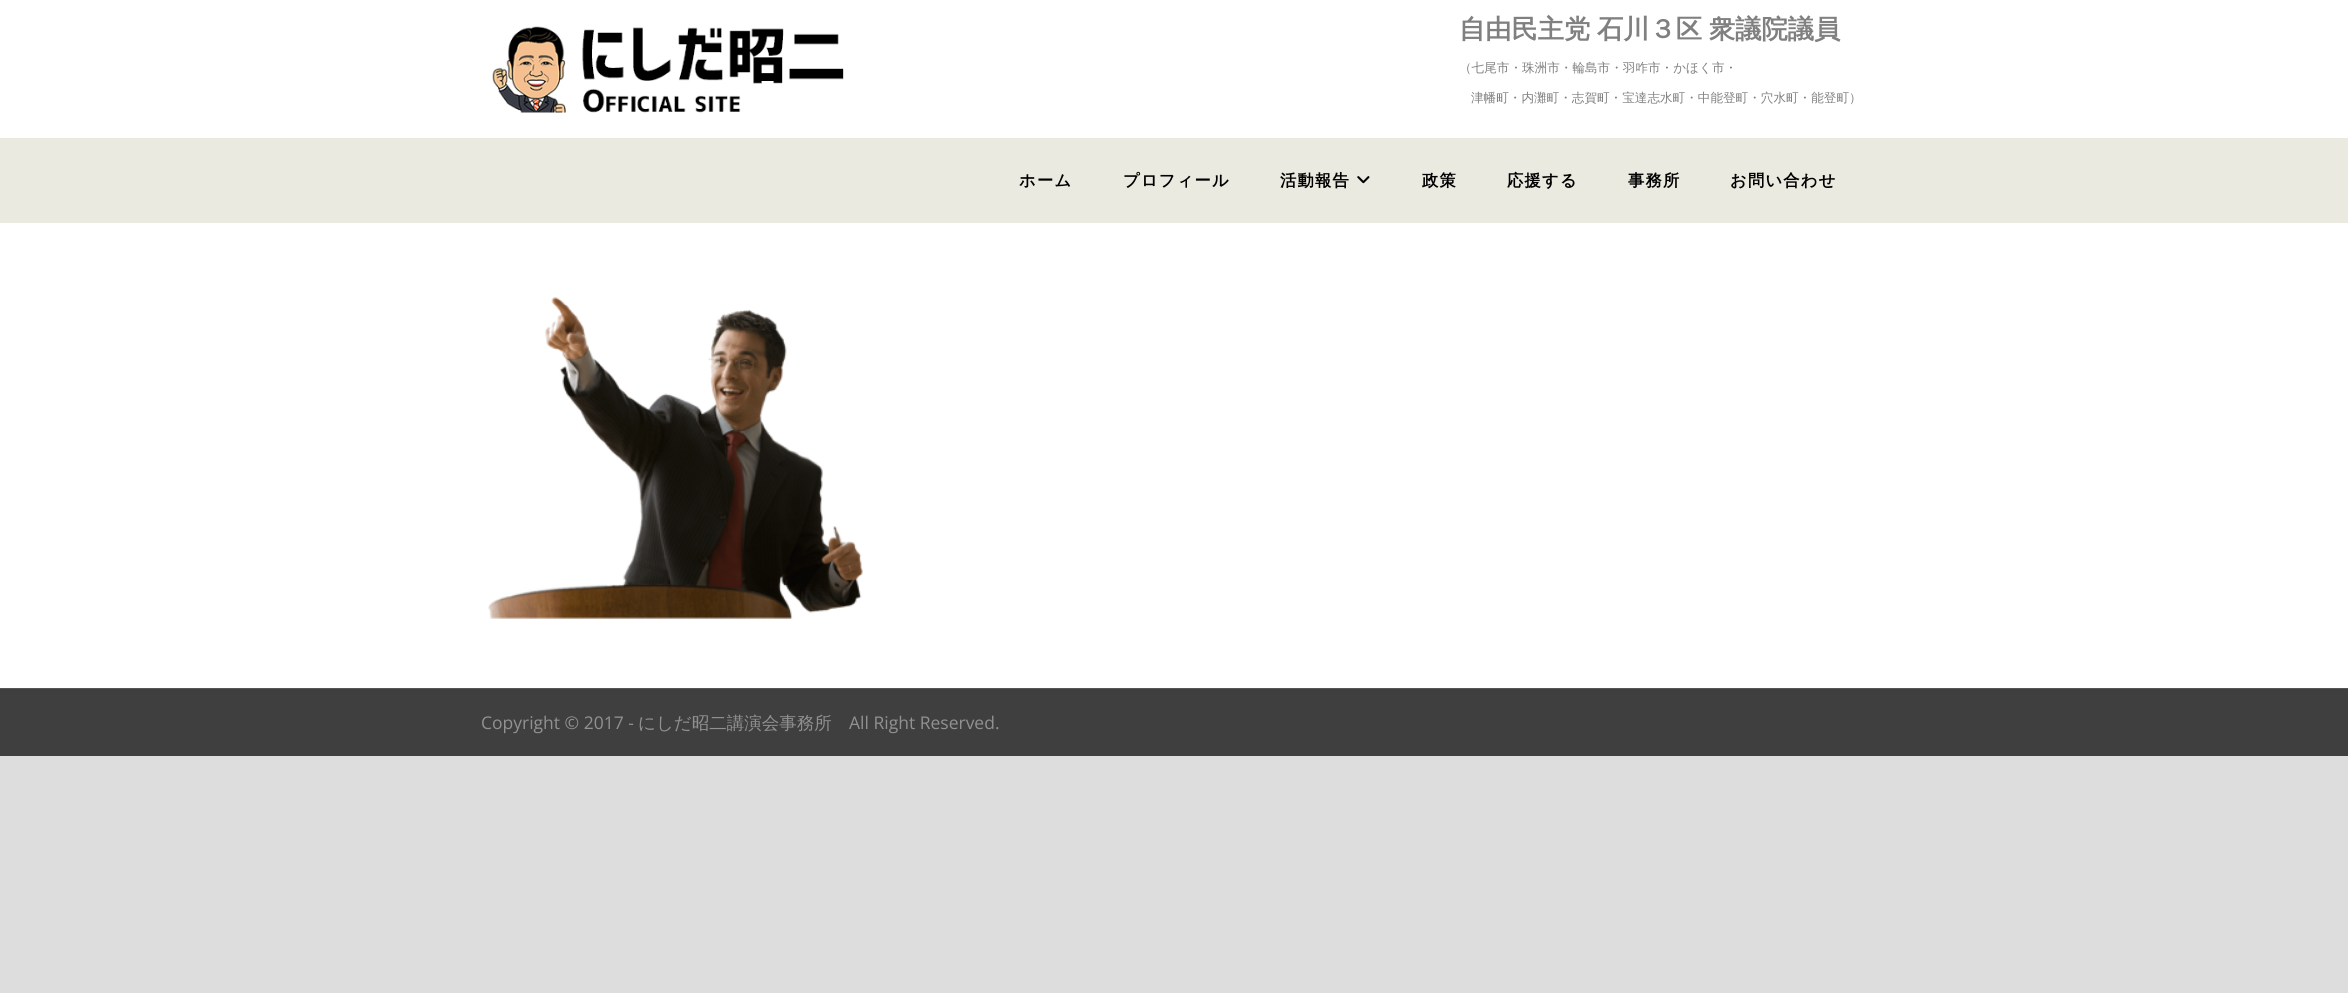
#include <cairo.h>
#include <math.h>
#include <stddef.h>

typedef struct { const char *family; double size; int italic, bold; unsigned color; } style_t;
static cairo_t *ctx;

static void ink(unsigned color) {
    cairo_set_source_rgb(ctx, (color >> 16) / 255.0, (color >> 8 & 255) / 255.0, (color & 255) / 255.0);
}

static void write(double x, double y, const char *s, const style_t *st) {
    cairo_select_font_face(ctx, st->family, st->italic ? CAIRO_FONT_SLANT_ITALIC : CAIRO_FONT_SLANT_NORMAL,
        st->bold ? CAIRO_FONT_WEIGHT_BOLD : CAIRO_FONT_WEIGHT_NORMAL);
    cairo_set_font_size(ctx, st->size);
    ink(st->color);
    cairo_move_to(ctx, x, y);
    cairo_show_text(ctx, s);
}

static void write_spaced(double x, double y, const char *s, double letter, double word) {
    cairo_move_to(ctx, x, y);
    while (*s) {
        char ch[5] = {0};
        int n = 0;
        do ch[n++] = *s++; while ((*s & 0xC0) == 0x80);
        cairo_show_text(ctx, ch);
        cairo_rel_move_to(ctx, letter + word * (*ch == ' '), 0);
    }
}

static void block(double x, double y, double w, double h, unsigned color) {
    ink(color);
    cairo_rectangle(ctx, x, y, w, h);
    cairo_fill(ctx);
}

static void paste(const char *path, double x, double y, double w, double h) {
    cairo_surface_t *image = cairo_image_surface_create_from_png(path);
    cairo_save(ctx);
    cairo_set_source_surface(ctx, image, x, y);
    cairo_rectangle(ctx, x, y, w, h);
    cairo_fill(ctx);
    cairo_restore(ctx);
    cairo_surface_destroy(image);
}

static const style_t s1 = {"WenQuanYi Zen Hei Medium", 12.6, 0, 0, 0x808080};
static const style_t s2 = {"Open Sans", 17.5, 0, 0, 0x919191};
static const style_t s3 = {"WenQuanYi Zen Hei Medium", 17.5, 0, 0, 0x919191};

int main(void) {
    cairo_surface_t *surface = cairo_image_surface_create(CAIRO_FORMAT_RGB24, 2348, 993);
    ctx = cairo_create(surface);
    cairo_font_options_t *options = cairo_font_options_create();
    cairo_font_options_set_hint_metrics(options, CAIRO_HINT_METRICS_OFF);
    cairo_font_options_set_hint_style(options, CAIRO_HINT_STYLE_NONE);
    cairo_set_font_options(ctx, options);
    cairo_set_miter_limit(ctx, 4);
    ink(0xdddddd);
    cairo_paint(ctx);
    block(0, 0, 2348, 688, 0xffffff);
    paste("pic1.png", 492, 26, 352, 87);
    cairo_select_font_face(ctx, "WenQuanYi Zen Hei", CAIRO_FONT_SLANT_NORMAL, CAIRO_FONT_WEIGHT_BOLD);
    cairo_set_font_size(ctx, 26.25);
    ink(0x808080);
    write_spaced(1459, 38, "自由民主党 石川３区 衆議院議員", 0, -1);
    write(1459, 72, "（七尾市・珠洲市・輪島市・羽咋市・かほく市・", &s1);
    write(1471, 102, "津幡町・内灘町・志賀町・宝達志水町・中能登町・穴水町・能登町）", &s1);
    block(0, 138, 2348, 85, 0xeaeae1);
    cairo_select_font_face(ctx, "WenQuanYi Zen Hei", CAIRO_FONT_SLANT_NORMAL, CAIRO_FONT_WEIGHT_BOLD);
    cairo_set_font_size(ctx, 16.25);
    ink(0x000000);
    write_spaced(1019, 186, "ホーム", 1.25, 0);
    write_spaced(1123, 186, "プロフィール", 1.25, 0);
    write_spaced(1280, 186, "活動報告", 1.25, 0);
    paste("pic2.png", 1357, 176, 13, 8);
    write_spaced(1422, 186, "政策", 1.25, 0);
    write_spaced(1507, 186, "応援する", 1.25, 0);
    write_spaced(1628, 186, "事務所", 1.25, 0);
    write_spaced(1730, 186, "お問い合わせ", 1.25, 0);
    paste("pic3.png", 488, 297, 375, 322);
    block(0, 689, 2348, 67, 0x3f3f3f);
    block(0, 688, 2348, 1, 0x555555);
    write(481, 729, "Copyright © 2017 -", &s2);
    write(638, 729, "にしだ昭二講演会事務所", &s3);
    write(849, 729, "All Right Reserved.", &s2);
    cairo_surface_write_to_png(surface, "screenshot.png");
    cairo_font_options_destroy(options);
    cairo_destroy(ctx);
    cairo_surface_destroy(surface);
    return 0;
}
